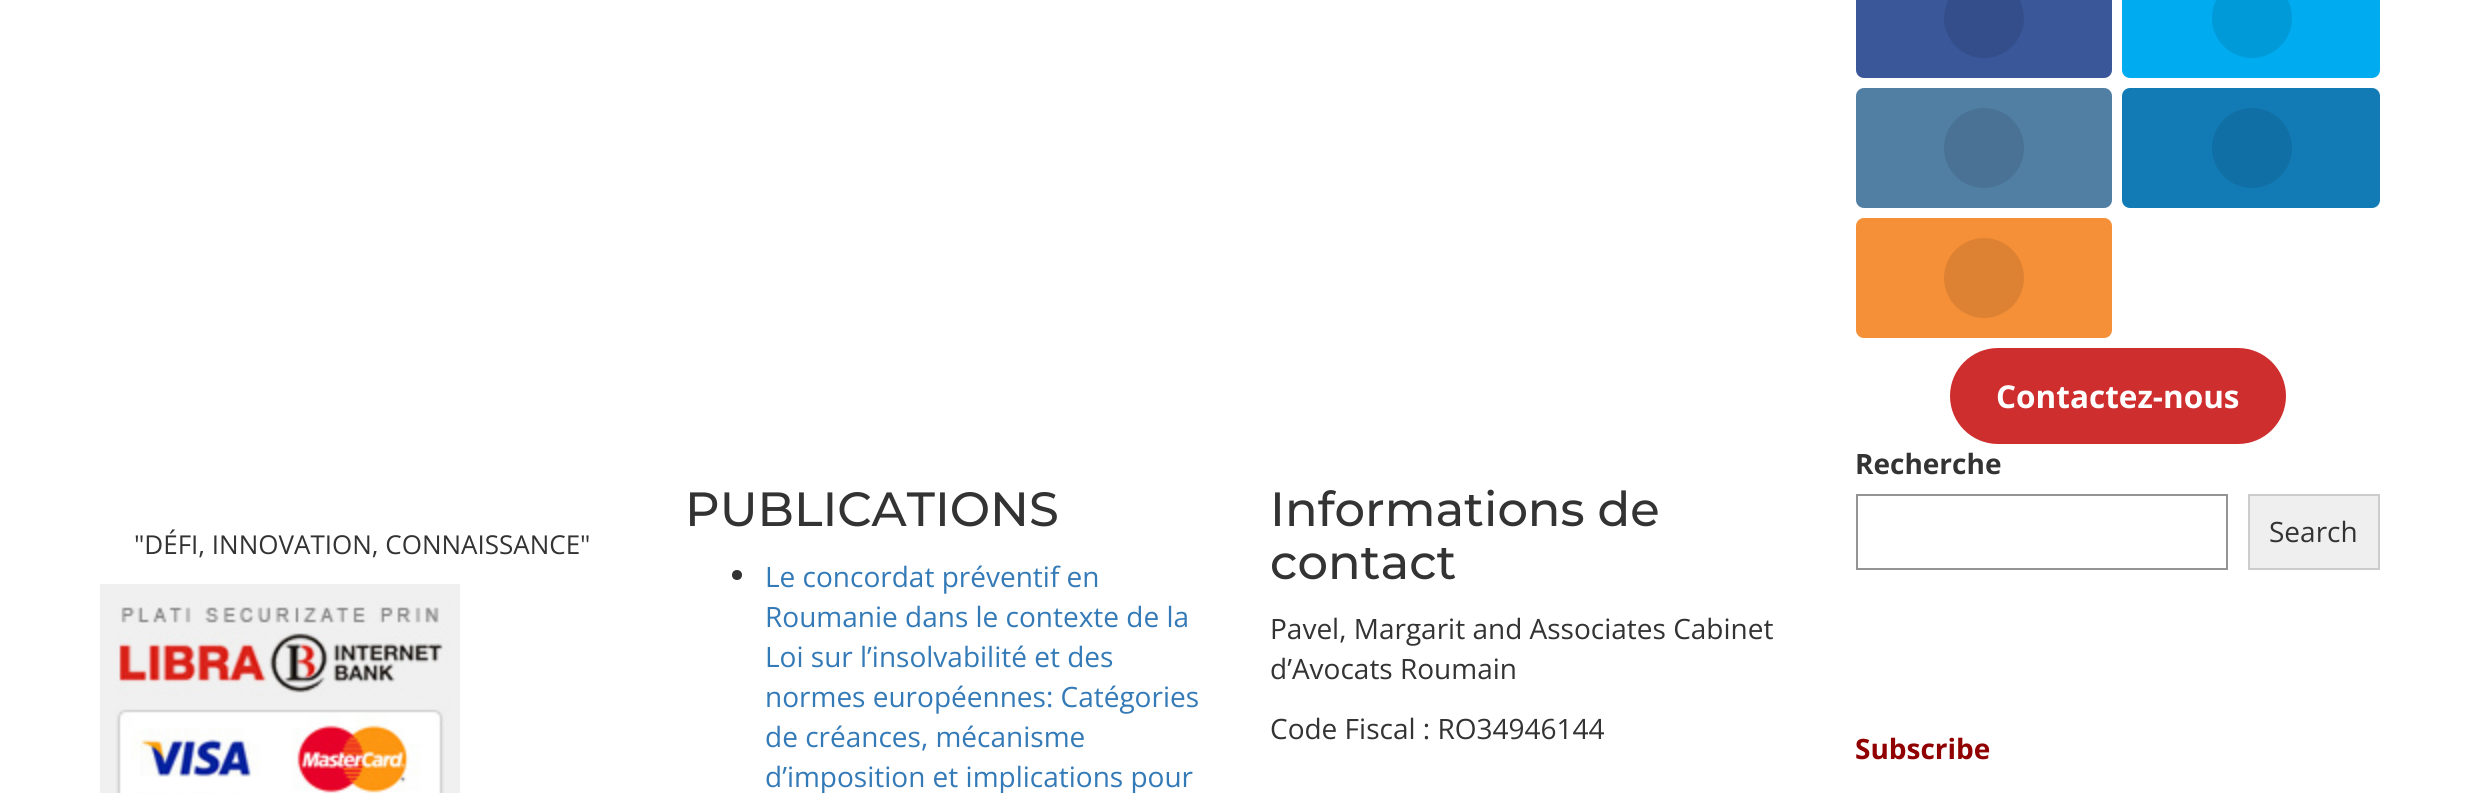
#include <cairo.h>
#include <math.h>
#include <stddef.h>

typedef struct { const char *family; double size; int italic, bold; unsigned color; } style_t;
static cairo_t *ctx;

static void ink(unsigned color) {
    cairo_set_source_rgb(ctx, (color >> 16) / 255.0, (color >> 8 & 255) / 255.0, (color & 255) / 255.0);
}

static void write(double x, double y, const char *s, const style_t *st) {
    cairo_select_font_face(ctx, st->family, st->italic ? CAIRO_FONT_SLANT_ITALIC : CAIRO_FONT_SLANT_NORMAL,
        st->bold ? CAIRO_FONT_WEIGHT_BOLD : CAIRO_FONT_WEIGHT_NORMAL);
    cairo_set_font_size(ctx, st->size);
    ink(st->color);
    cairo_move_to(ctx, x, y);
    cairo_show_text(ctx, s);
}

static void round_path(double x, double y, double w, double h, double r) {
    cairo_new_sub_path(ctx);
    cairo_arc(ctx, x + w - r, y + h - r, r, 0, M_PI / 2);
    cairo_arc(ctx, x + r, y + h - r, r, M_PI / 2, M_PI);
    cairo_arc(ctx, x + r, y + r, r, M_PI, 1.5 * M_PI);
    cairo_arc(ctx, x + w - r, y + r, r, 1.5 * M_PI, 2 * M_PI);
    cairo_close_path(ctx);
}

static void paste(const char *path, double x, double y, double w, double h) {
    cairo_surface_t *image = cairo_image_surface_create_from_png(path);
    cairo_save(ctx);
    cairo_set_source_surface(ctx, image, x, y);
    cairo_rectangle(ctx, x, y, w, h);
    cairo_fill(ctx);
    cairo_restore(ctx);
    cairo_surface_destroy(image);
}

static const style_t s1 = {"Open Sans", 31.5, 0, 1, 0xffffff};
static const style_t s2 = {"Open Sans", 26, 0, 0, 0x333333};
static const style_t s3 = {"Montserrat Medium", 48, 0, 0, 0x333333};
static const style_t s4 = {"Open Sans", 28, 0, 0, 0x337ab7};
static const style_t s5 = {"Open Sans", 28, 0, 0, 0x333333};
static const style_t s6 = {"Open Sans", 28, 0, 1, 0x333333};
static const style_t s7 = {"Open Sans", 28, 0, 1, 0x910000};

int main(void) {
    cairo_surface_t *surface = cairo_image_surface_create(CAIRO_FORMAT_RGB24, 2479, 793);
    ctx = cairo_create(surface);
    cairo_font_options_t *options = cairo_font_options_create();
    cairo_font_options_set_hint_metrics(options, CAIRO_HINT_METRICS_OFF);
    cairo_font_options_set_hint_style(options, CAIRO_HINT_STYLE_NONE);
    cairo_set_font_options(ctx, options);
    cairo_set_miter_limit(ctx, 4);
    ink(0xffffff);
    cairo_paint(ctx);
    ink(0x3a579a);
    round_path(1856, -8, 256, 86, 8);
    cairo_fill(ctx);
    ink(0x344e8b);
    cairo_arc(ctx, 1984, 18, 40, 0, 2 * M_PI);
    cairo_fill(ctx);
    ink(0x00abf0);
    round_path(2122, -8, 258, 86, 8);
    cairo_fill(ctx);
    ink(0x009ad8);
    cairo_arc(ctx, 2252, 18, 40, 0, 2 * M_PI);
    cairo_fill(ctx);
    ink(0x517fa4);
    round_path(1856, 88, 256, 120, 8);
    cairo_fill(ctx);
    ink(0x497294);
    cairo_arc(ctx, 1984, 148, 40, 0, 2 * M_PI);
    cairo_fill(ctx);
    ink(0x127bb6);
    round_path(2122, 88, 258, 120, 8);
    cairo_fill(ctx);
    ink(0x106fa4);
    cairo_arc(ctx, 2252, 148, 40, 0, 2 * M_PI);
    cairo_fill(ctx);
    ink(0xf59038);
    round_path(1856, 218, 256, 120, 8);
    cairo_fill(ctx);
    ink(0xdd8232);
    cairo_arc(ctx, 1984, 278, 40, 0, 2 * M_PI);
    cairo_fill(ctx);
    ink(0xcf2e2e);
    round_path(1950, 348, 336, 96, 48);
    cairo_fill(ctx);
    write(1996, 408, "Contactez-nous", &s1);
    write(134, 554, "\"DÉFI, INNOVATION, CONNAISSANCE\"", &s2);
    paste("pic1.png", 100, 584, 360, 209);
    write(685, 526, "PUBLICATIONS", &s3);
    cairo_new_path(ctx);
    cairo_arc(ctx, 737, 575, 5, 0, 2 * M_PI);
    cairo_fill(ctx);
    write(765, 587, "Le concordat préventif en", &s4);
    write(765, 627, "Roumanie dans le contexte de la", &s4);
    write(765, 667, "Loi sur l’insolvabilité et des", &s4);
    write(765, 707, "normes européennes: Catégories", &s4);
    write(765, 747, "de créances, mécanisme", &s4);
    write(765, 787, "d’imposition et implications pour", &s4);
    write(1270, 526, "Informations de", &s3);
    write(1270, 579, "contact", &s3);
    write(1270, 639, "Pavel, Margarit and Associates Cabinet", &s5);
    write(1270, 679, "d’Avocats Roumain", &s5);
    write(1270, 739, "Code Fiscal : RO34946144", &s5);
    write(1855, 474, "Recherche", &s6);
    cairo_rectangle(ctx, 1857, 495, 370, 74);
    ink(0x949494);
    cairo_stroke(ctx);
    ink(0xefefef);
    cairo_rectangle(ctx, 2249, 495, 130, 74);
    cairo_fill_preserve(ctx);
    ink(0xcccccc);
    cairo_stroke(ctx);
    write(2269, 542, "Search", &s5);
    write(1855, 759, "Subscribe", &s7);
    cairo_surface_write_to_png(surface, "screenshot.png");
    cairo_font_options_destroy(options);
    cairo_destroy(ctx);
    cairo_surface_destroy(surface);
    return 0;
}
